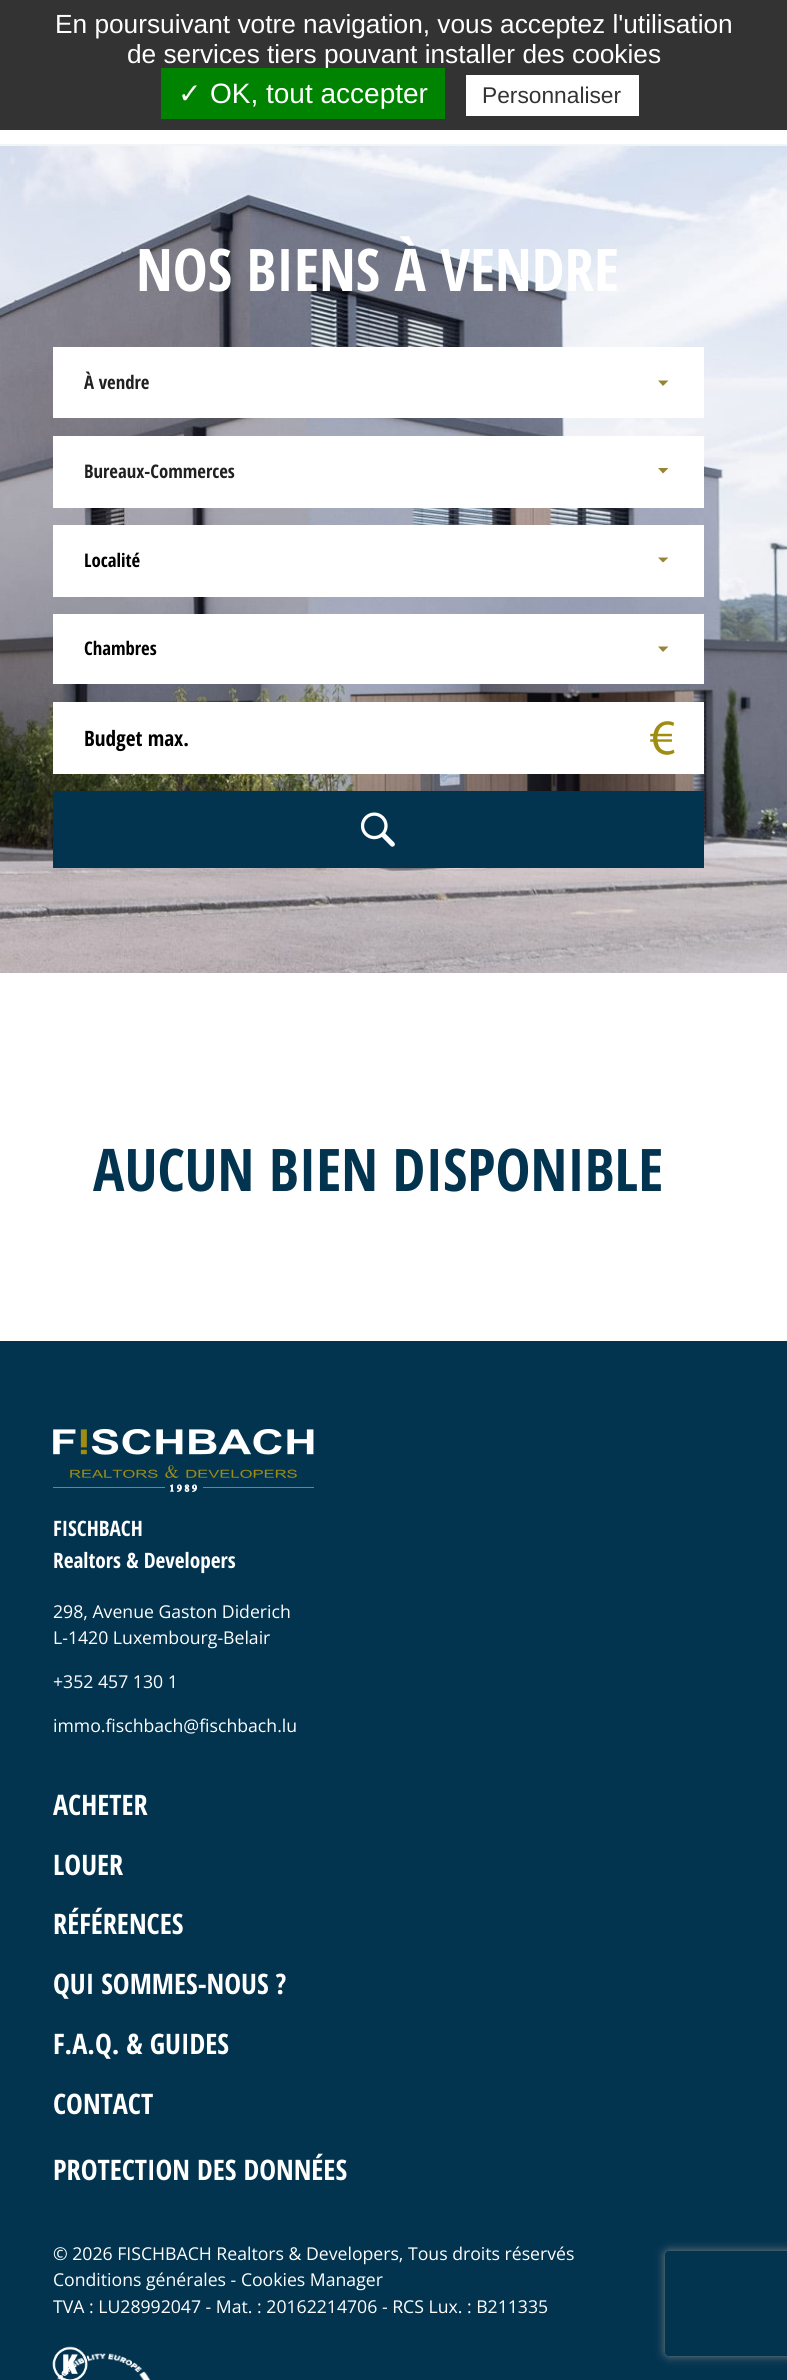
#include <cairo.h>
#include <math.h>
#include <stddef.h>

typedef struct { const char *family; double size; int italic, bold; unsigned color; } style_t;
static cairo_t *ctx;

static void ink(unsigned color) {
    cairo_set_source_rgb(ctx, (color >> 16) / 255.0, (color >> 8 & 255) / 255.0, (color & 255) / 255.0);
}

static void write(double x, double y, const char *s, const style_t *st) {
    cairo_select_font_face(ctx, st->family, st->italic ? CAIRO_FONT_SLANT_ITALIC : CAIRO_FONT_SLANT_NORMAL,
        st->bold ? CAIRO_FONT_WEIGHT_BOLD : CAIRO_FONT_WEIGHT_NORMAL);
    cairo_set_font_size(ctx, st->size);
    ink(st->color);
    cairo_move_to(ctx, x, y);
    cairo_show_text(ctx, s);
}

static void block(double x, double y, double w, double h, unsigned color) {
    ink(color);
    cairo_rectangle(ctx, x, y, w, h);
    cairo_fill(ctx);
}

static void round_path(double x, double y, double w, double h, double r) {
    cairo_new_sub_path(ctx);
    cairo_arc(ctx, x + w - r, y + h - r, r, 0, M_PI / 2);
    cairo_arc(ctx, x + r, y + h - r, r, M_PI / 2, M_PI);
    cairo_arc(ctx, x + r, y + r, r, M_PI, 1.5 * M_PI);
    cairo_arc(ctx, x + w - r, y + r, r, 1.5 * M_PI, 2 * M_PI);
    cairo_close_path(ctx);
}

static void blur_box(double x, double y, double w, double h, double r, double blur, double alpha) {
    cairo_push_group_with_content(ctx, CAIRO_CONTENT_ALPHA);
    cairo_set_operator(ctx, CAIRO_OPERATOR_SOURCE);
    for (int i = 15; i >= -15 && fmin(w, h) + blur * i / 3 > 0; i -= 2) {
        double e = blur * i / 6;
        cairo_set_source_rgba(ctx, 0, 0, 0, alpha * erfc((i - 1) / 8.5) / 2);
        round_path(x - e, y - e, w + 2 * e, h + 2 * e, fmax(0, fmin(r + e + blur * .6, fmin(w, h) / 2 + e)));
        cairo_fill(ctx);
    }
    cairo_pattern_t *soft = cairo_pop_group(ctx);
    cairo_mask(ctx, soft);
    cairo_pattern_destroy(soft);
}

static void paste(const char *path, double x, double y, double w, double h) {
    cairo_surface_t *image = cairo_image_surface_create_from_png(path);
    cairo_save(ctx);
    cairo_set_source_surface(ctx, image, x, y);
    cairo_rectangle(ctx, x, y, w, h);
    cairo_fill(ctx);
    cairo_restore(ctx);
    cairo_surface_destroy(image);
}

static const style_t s1 = {"Liberation Sans", 26.25, 0, 0, 0xffffff};
static const style_t s2 = {"DejaVu Sans", 28, 0, 0, 0xffffff};
static const style_t s3 = {"Liberation Sans", 28, 0, 0, 0xffffff};
static const style_t s4 = {"Liberation Sans", 22.75, 0, 0, 0x333333};
static const style_t s5 = {"Open Sans Condensed", 58.75, 0, 1, 0xffffff};
static const style_t s6 = {"Open Sans Condensed", 18.75, 0, 1, 0x212121};
static const style_t s7 = {"Open Sans Condensed", 18.75, 0, 1, 0x000000};
static const style_t s8 = {"Open Sans Condensed", 21.25, 0, 1, 0x000000};
static const style_t s9 = {"Open Sans Condensed", 58.75, 0, 1, 0x023450};
static const style_t s10 = {"Open Sans Condensed", 21.25, 0, 1, 0xffffff};
static const style_t s11 = {"Open Sans", 17.65, 0, 0, 0xffffff};
static const style_t s12 = {"Open Sans Condensed", 28.25, 0, 1, 0xffffff};

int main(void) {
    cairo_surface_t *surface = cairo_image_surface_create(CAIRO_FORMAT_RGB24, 787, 2380);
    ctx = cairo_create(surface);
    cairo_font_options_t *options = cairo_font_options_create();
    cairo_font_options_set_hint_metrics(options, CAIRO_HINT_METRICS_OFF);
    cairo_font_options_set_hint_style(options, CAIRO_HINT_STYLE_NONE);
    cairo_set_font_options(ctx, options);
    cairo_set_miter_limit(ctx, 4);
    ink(0xffffff);
    cairo_paint(ctx);
    block(0, 0, 787, 130, 0x333333);
    write(55, 33, "En poursuivant votre navigation, vous acceptez l'utilisation", &s1);
    write(127, 63, "de services tiers pouvant installer des cookies", &s1);
    block(161, 68, 284, 51, 0x008300);
    write(178, 103, "✓", &s2);
    write(210, 103, "OK, tout accepter", &s3);
    block(466, 75, 173, 41, 0xffffff);
    write(482, 103, "Personnaliser", &s4);
    block(0, 144, 787, 2, 0xf2f5f6);
    paste("pic1.png", 0, 146, 787, 827);
    write(136, 291, "NOS BIENS À VENDRE", &s5);
    block(53, 347, 651, 71, 0xffffff);
    write(84, 389, "À vendre", &s6);
    ink(0x978537);
    cairo_new_path(ctx);
    cairo_move_to(ctx, 658, 380.5);
    cairo_line_to(ctx, 668.5, 380.5);
    cairo_line_to(ctx, 663, 386);
    cairo_close_path(ctx);
    cairo_fill(ctx);
    block(53, 436, 651, 72, 0xffffff);
    write(84, 478, "Bureaux-Commerces", &s6);
    ink(0x978537);
    cairo_new_path(ctx);
    cairo_move_to(ctx, 658, 468);
    cairo_line_to(ctx, 668.5, 468);
    cairo_line_to(ctx, 663, 473.5);
    cairo_close_path(ctx);
    cairo_fill(ctx);
    block(53, 525, 651, 72, 0xffffff);
    write(84, 567, "Localité", &s7);
    ink(0x978537);
    cairo_new_path(ctx);
    cairo_move_to(ctx, 658, 557.5);
    cairo_line_to(ctx, 668.5, 557.5);
    cairo_line_to(ctx, 663, 562.5);
    cairo_close_path(ctx);
    cairo_fill(ctx);
    block(53, 614, 651, 70, 0xffffff);
    write(84, 655, "Chambres", &s7);
    ink(0x978537);
    cairo_new_path(ctx);
    cairo_move_to(ctx, 658, 646.5);
    cairo_line_to(ctx, 668.5, 646.5);
    cairo_line_to(ctx, 663, 652);
    cairo_close_path(ctx);
    cairo_fill(ctx);
    block(53, 702, 651, 72, 0xffffff);
    paste("pic2.png", 650, 721, 25, 34);
    write(84, 746, "Budget max.", &s8);
    block(53, 791, 651, 77, 0x023450);
    paste("pic3.png", 361, 812, 34, 35);
    write(93, 1191, "AUCUN BIEN DISPONIBLE", &s9);
    block(0, 1341, 787, 1039, 0x023450);
    paste("pic4.png", 53, 1429, 261, 63);
    write(53, 1536, "FISCHBACH", &s10);
    write(53, 1568, "Realtors & Developers", &s10);
    write(53, 1618, "298, Avenue Gaston Diderich", &s11);
    write(53, 1644, "L-1420 Luxembourg-Belair", &s11);
    write(53, 1688, "+352 457 130 1", &s11);
    write(53, 1732, "immo.fischbach@fischbach.lu", &s11);
    write(53, 1815, "ACHETER", &s12);
    write(53, 1875, "LOUER", &s12);
    write(53, 1934, "RÉFÉRENCES", &s12);
    write(53, 1994, "QUI SOMMES-NOUS ?", &s12);
    write(53, 2054, "F.A.Q. & GUIDES", &s12);
    write(53, 2114, "CONTACT", &s12);
    write(53, 2180, "PROTECTION DES DONNÉES", &s12);
    paste("pic6.png", 52, 2346, 36, 34);
    paste("pic5.png", 56, 2353, 95, 27);
    write(53, 2260, "© 2026 FISCHBACH Realtors & Developers, Tous droits réservés", &s11);
    write(53, 2286, "Conditions générales - Cookies Manager", &s11);
    write(53, 2313, "TVA : LU28992047 - Mat. : 20162214706 - RCS Lux. : B211335", &s11);
    cairo_save(ctx);
    cairo_set_fill_rule(ctx, CAIRO_FILL_RULE_EVEN_ODD);
    cairo_new_path(ctx);
    cairo_move_to(ctx, 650, 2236);
    cairo_line_to(ctx, 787, 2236);
    cairo_line_to(ctx, 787, 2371);
    cairo_line_to(ctx, 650, 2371);
    cairo_close_path(ctx);
    cairo_move_to(ctx, 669, 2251);
    cairo_line_to(ctx, 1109, 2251);
    cairo_curve_to(ctx, 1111, 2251, 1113, 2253, 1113, 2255);
    cairo_line_to(ctx, 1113, 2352);
    cairo_curve_to(ctx, 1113, 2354, 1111, 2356, 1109, 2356);
    cairo_line_to(ctx, 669, 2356);
    cairo_curve_to(ctx, 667, 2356, 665, 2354, 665, 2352);
    cairo_line_to(ctx, 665, 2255);
    cairo_curve_to(ctx, 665, 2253, 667, 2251, 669, 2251);
    cairo_close_path(ctx);
    cairo_clip(ctx);
    ink(0x808080);
    blur_box(665, 2251, 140, 105, 4, 4.5, 1);
    cairo_restore(ctx);
    cairo_surface_write_to_png(surface, "screenshot.png");
    cairo_font_options_destroy(options);
    cairo_destroy(ctx);
    cairo_surface_destroy(surface);
    return 0;
}
